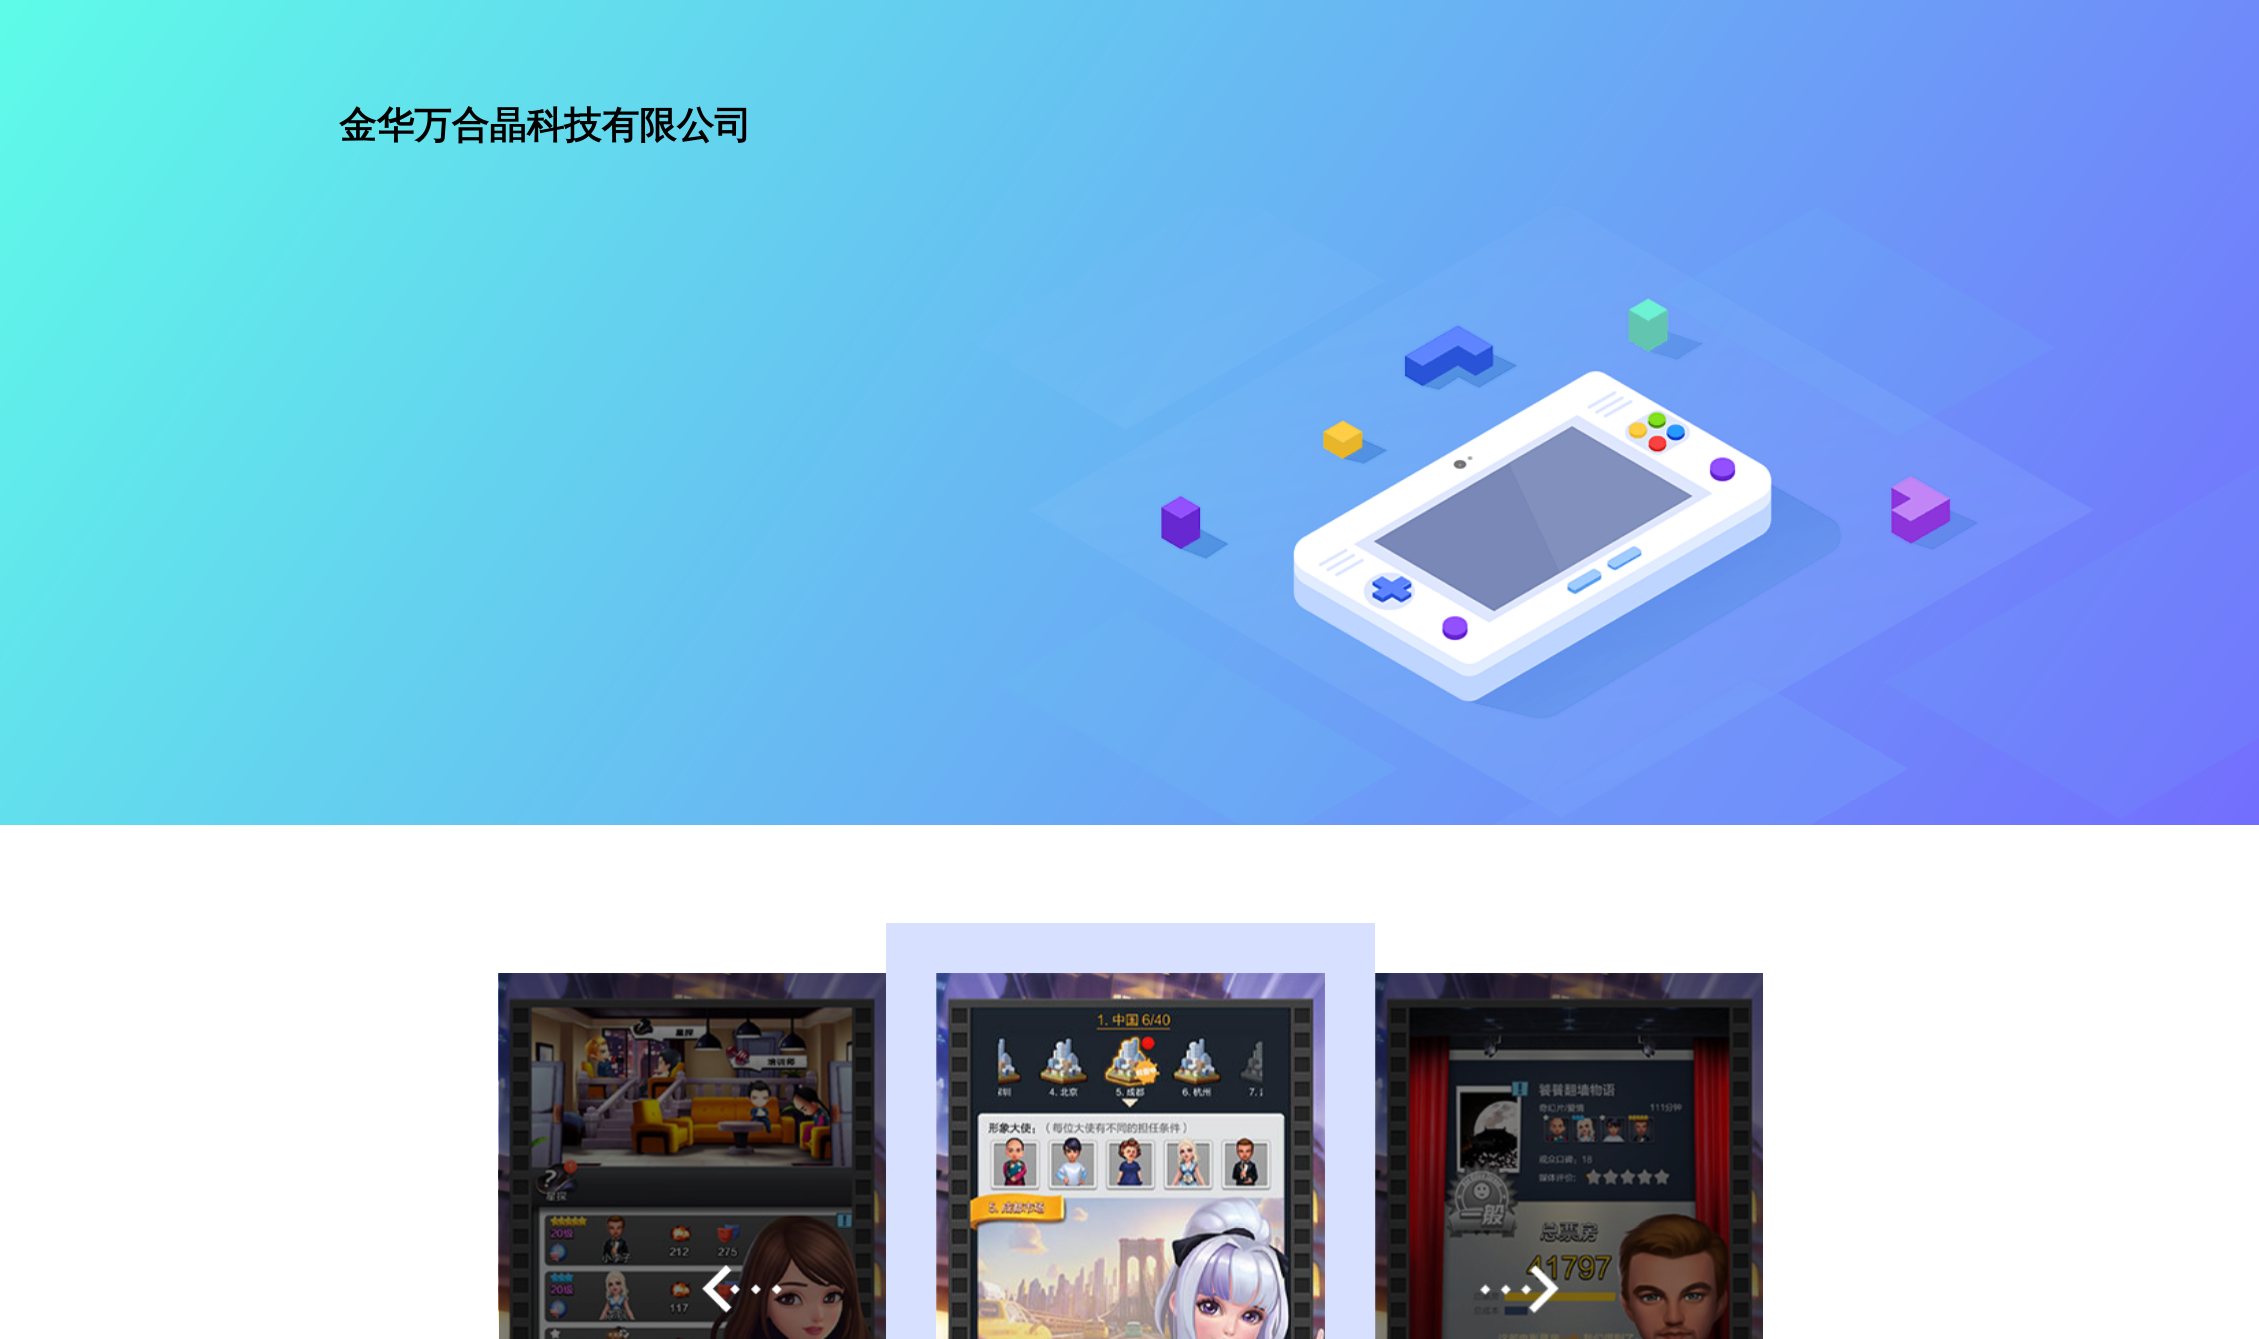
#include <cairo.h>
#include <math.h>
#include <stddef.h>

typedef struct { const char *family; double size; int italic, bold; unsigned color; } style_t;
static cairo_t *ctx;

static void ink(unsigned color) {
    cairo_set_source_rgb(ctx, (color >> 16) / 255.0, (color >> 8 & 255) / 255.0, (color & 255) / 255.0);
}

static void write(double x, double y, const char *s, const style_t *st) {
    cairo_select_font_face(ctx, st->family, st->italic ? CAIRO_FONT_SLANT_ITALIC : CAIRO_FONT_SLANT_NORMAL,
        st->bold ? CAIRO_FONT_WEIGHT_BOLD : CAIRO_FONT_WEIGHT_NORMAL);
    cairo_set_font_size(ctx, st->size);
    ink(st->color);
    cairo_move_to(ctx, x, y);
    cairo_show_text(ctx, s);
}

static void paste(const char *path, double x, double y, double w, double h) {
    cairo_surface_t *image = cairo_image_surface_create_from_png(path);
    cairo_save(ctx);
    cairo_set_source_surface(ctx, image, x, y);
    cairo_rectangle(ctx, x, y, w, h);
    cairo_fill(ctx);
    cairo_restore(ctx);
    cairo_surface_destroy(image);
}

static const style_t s1 = {"WenQuanYi Zen Hei", 37.5, 0, 1, 0x000000};

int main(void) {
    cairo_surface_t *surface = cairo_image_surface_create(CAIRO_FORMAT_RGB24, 2259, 1339);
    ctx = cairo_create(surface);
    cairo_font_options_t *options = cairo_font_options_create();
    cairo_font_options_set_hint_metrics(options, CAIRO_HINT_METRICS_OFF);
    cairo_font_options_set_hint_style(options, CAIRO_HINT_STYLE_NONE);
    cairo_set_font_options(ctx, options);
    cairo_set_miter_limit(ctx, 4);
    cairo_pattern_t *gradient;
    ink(0xffffff);
    cairo_paint(ctx);
    gradient = cairo_pattern_create_linear(178, -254, 2082, 1079);
    cairo_pattern_add_color_stop_rgba(gradient, 0, 0.369, 0.988, 0.91, 1);
    cairo_pattern_add_color_stop_rgba(gradient, 1, 0.451, 0.431, 0.996, 1);
    cairo_set_source(ctx, gradient);
    cairo_pattern_destroy(gradient);
    cairo_rectangle(ctx, 0, 0, 2259, 825);
    cairo_fill(ctx);
    write(339, 138, "金华万合晶科技有限公司", &s1);
    paste("pic1.png", 970, 207, 1289, 618);
    paste("pic3.png", 936, 973, 389, 366);
    cairo_rectangle(ctx, 911, 948, 439, 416);
    ink(0xd7e1ff);
    cairo_set_line_width(ctx, 50);
    cairo_stroke(ctx);
    paste("pic2.png", 498, 973, 388, 366);
    paste("pic4.png", 1375, 973, 388, 366);
    paste("pic5.png", 702, 1265, 80, 48);
    paste("pic6.png", 1480, 1264, 79, 50);
    cairo_surface_write_to_png(surface, "screenshot.png");
    cairo_font_options_destroy(options);
    cairo_destroy(ctx);
    cairo_surface_destroy(surface);
    return 0;
}
